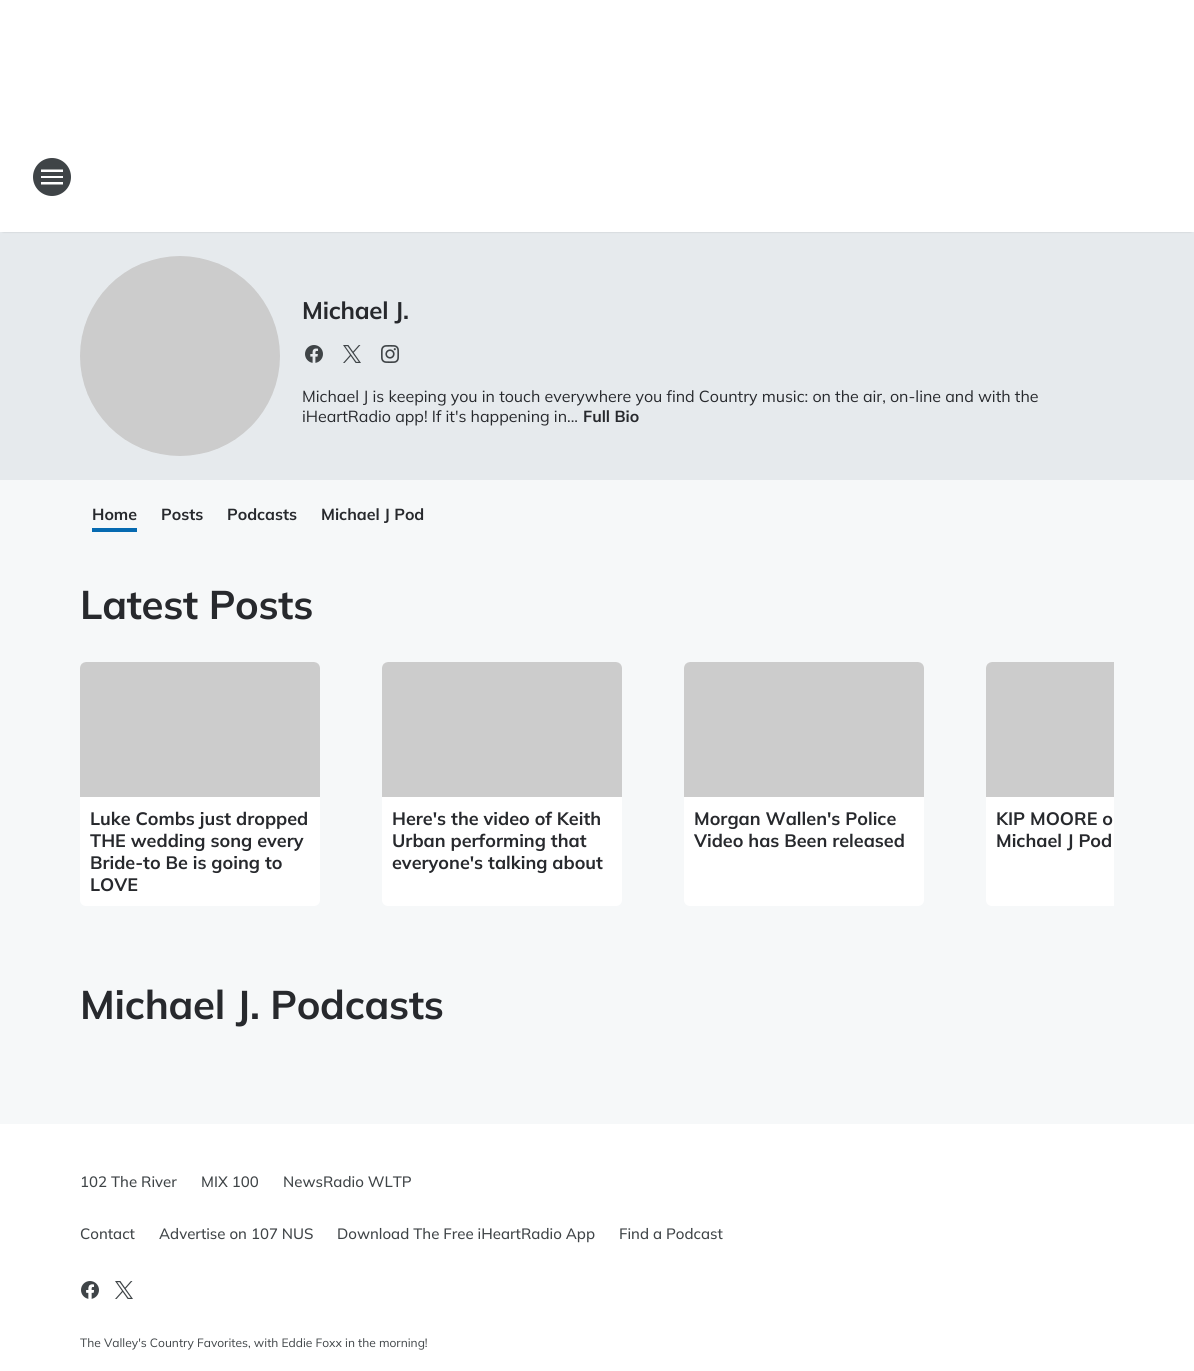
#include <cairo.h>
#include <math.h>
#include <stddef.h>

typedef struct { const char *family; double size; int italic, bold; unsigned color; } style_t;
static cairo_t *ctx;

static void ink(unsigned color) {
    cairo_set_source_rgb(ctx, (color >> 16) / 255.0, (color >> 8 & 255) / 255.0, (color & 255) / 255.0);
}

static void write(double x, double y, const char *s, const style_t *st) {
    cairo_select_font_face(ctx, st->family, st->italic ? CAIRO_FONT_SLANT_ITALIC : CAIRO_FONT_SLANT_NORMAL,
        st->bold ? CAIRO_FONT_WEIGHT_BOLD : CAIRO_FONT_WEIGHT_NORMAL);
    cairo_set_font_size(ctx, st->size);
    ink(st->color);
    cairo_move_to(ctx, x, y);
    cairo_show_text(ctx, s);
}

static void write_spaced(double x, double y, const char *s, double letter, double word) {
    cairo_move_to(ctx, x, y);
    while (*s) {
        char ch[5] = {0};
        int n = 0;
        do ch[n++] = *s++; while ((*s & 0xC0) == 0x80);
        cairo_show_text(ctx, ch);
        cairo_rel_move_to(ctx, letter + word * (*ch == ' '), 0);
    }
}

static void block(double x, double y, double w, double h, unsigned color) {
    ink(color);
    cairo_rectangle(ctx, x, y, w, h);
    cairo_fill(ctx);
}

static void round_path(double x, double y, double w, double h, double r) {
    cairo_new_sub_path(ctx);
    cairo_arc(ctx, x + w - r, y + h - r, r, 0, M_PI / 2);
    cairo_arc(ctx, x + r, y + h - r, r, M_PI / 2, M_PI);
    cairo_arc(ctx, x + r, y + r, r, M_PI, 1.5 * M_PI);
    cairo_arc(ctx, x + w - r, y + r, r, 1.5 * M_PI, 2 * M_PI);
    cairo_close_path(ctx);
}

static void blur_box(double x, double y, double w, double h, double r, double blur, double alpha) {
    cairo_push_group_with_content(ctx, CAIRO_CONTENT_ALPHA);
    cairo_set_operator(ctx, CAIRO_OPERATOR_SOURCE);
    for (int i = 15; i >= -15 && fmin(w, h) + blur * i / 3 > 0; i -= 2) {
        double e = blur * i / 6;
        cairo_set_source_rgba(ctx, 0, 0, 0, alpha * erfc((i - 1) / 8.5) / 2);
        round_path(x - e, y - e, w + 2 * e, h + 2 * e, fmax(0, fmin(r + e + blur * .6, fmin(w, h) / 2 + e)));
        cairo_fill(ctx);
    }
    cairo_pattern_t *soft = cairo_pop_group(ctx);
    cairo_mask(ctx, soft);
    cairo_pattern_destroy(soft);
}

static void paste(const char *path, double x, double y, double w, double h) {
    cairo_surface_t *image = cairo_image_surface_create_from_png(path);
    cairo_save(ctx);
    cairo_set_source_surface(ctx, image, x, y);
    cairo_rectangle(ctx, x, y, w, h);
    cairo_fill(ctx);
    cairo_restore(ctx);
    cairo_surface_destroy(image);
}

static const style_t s1 = {"Mulish", 16, 0, 0, 0x27292d};
static const style_t s2 = {"Mulish", 16, 0, 1, 0x27292d};
static const style_t s3 = {"Mulish", 18, 0, 1, 0x27292d};
static const style_t s4 = {"Mulish Medium", 15, 0, 0, 0x3f4447};
static const style_t s5 = {"Mulish", 12, 0, 0, 0x3f4447};

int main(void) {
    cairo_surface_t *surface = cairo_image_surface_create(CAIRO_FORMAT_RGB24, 1194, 1371);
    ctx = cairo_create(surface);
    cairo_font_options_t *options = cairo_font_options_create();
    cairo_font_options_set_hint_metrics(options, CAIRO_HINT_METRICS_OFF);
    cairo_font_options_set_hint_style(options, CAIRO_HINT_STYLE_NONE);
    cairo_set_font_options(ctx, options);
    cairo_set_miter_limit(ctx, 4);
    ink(0xf6f8f9);
    cairo_paint(ctx);
    block(0, 0, 1194, 122, 0xffffff);
    block(0, 232, 1194, 248, 0xe6eaed);
    ink(0x000000);
    blur_box(3, 126, 1188, 104, 0, 1.5, 1);
    block(0, 122, 1194, 110, 0xffffff);
    ink(0x3f4447);
    cairo_arc(ctx, 52, 177, 19, 0, 2 * M_PI);
    cairo_fill(ctx);
    ink(0xffffff);
    cairo_set_fill_rule(ctx, CAIRO_FILL_RULE_EVEN_ODD);
    cairo_new_path(ctx);
    cairo_move_to(ctx, 41, 184.5);
    cairo_line_to(ctx, 63, 184.5);
    cairo_line_to(ctx, 63, 182);
    cairo_line_to(ctx, 41, 182);
    cairo_close_path(ctx);
    cairo_move_to(ctx, 41, 178);
    cairo_line_to(ctx, 63, 178);
    cairo_line_to(ctx, 63, 176);
    cairo_line_to(ctx, 41, 176);
    cairo_close_path(ctx);
    cairo_move_to(ctx, 41, 169.5);
    cairo_line_to(ctx, 41, 172);
    cairo_line_to(ctx, 63, 172);
    cairo_line_to(ctx, 63, 169.5);
    cairo_close_path(ctx);
    cairo_fill(ctx);
    paste("pic1.png", 80, 256, 200, 200);
    cairo_select_font_face(ctx, "Mulish", CAIRO_FONT_SLANT_NORMAL, CAIRO_FONT_WEIGHT_BOLD);
    cairo_set_font_size(ctx, 24);
    ink(0x27292d);
    write_spaced(302, 319, "Michael J.", -0.25, 0);
    paste("pic2.png", 305, 345, 18, 18);
    paste("pic3.png", 343, 345, 18, 18);
    paste("pic4.png", 381, 345, 18, 18);
    write(302, 402, "Michael J is keeping you in touch everywhere you find Country music: on the air, on-line and with the", &s1);
    write(302, 422, "iHeartRadio app! If it's happening in...", &s1);
    write(583, 422, "Full Bio", &s2);
    write(92, 520, "Home", &s2);
    block(92, 528, 45, 4, 0x066ab1);
    write(161, 520, "Posts", &s2);
    write(227, 520, "Podcasts", &s2);
    write(321, 520, "Michael J Pod", &s2);
    cairo_set_font_size(ctx, 40);
    write_spaced(80, 619, "Latest Posts", -0.25, 0);
    ink(0xffffff);
    round_path(80, 662, 240, 244, 6);
    cairo_fill(ctx);
    paste("pic5.png", 80, 662, 240, 135);
    write(90, 825, "Luke Combs just dropped", &s3);
    write(90, 847, "THE wedding song every", &s3);
    write(90, 869, "Bride-to Be is going to", &s3);
    write(90, 891, "LOVE", &s3);
    ink(0xffffff);
    round_path(382, 662, 240, 244, 6);
    cairo_fill(ctx);
    paste("pic5.png", 382, 662, 240, 135);
    write(392, 825, "Here's the video of Keith", &s3);
    write(392, 847, "Urban performing that", &s3);
    write(392, 869, "everyone's talking about", &s3);
    ink(0xffffff);
    round_path(684, 662, 240, 244, 6);
    cairo_fill(ctx);
    paste("pic5.png", 684, 662, 240, 135);
    write(694, 825, "Morgan Wallen's Police", &s3);
    write(694, 847, "Video has Been released", &s3);
    ink(0xffffff);
    cairo_new_path(ctx);
    cairo_move_to(ctx, 992, 662);
    cairo_line_to(ctx, 1114, 662);
    cairo_line_to(ctx, 1114, 906);
    cairo_line_to(ctx, 992, 906);
    cairo_curve_to(ctx, 988.5, 906, 986, 903.5, 986, 900);
    cairo_line_to(ctx, 986, 668);
    cairo_curve_to(ctx, 986, 664.5, 988.5, 662, 992, 662);
    cairo_close_path(ctx);
    cairo_fill(ctx);
    paste("pic6.png", 986, 662, 128, 135);
    write(996, 825, "KIP MOORE o", &s3);
    write(996, 847, "Michael J Pod", &s3);
    cairo_set_font_size(ctx, 40);
    write_spaced(80, 1019, "Michael J. Podcasts", -0.25, 0);
    block(0, 1124, 1194, 247, 0xffffff);
    write(80, 1187, "102 The River", &s4);
    write(201, 1187, "MIX 100", &s4);
    write(283, 1187, "NewsRadio WLTP", &s4);
    write(80, 1239, "Contact", &s4);
    write(159, 1239, "Advertise on 107 NUS", &s4);
    write(337, 1239, "Download The Free iHeartRadio App", &s4);
    write(619, 1239, "Find a Podcast", &s4);
    paste("pic7.png", 81, 1281, 18, 18);
    paste("pic8.png", 115, 1281, 18, 18);
    write(80, 1347, "The Valley's Country Favorites, with Eddie Foxx in the morning!", &s5);
    cairo_surface_write_to_png(surface, "screenshot.png");
    cairo_font_options_destroy(options);
    cairo_destroy(ctx);
    cairo_surface_destroy(surface);
    return 0;
}
